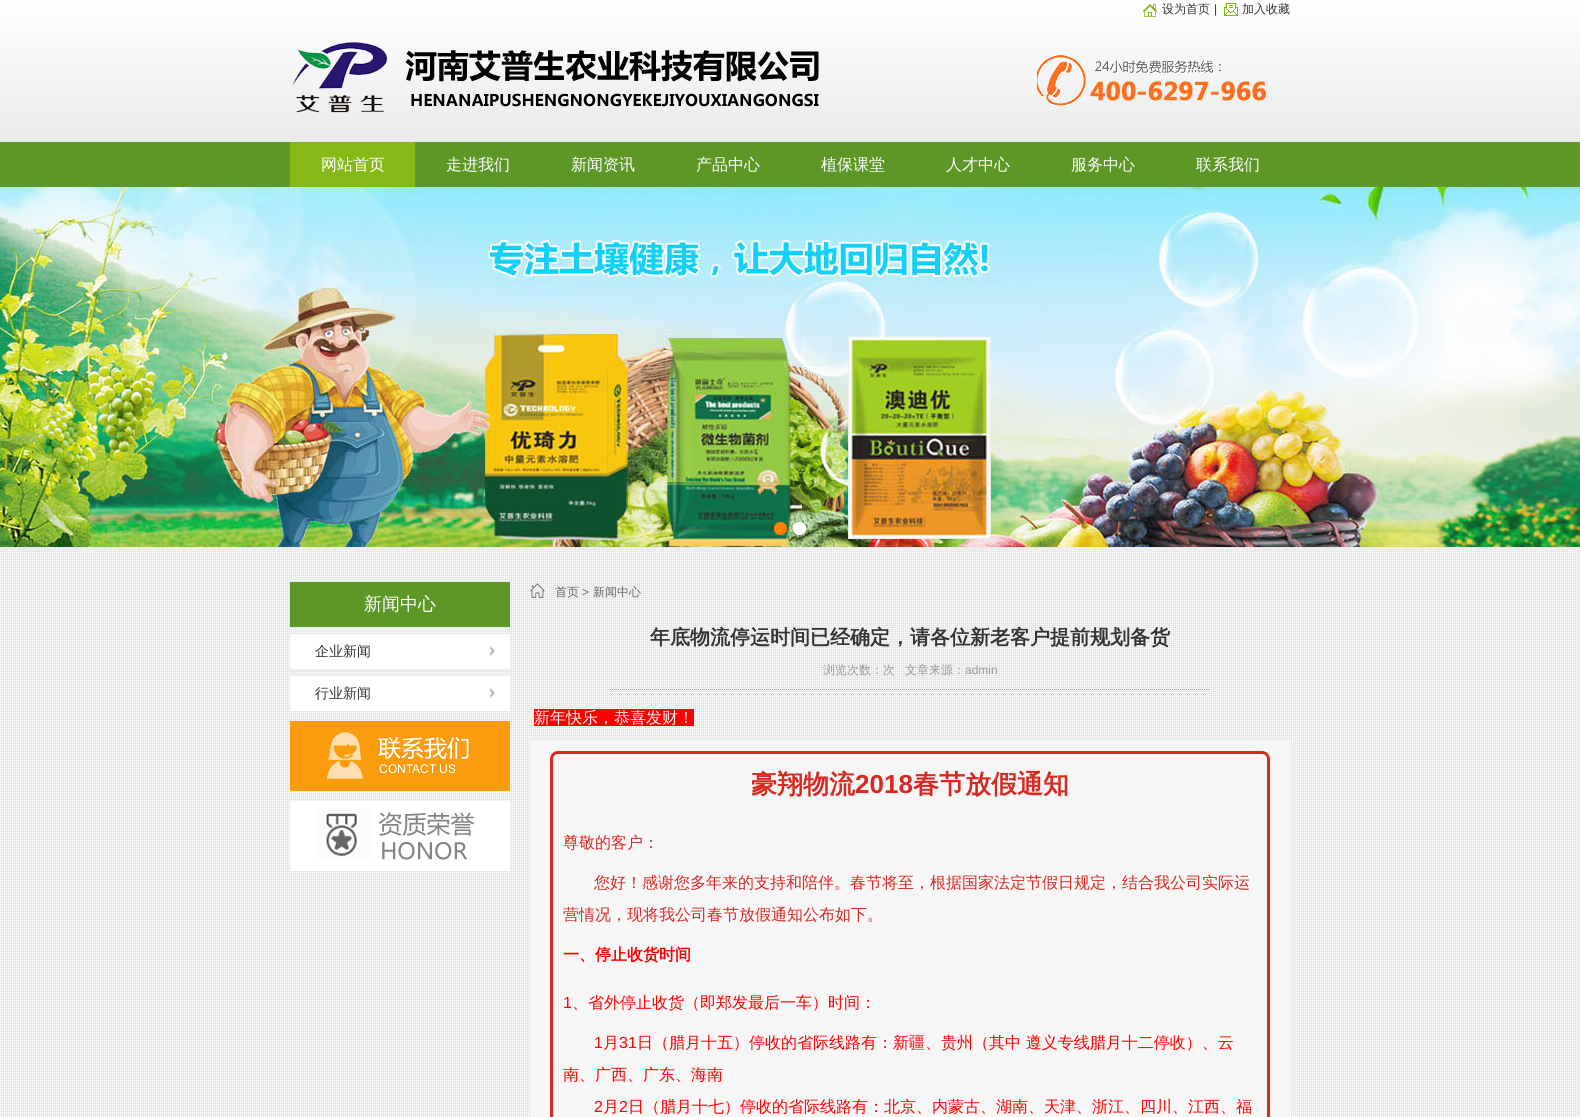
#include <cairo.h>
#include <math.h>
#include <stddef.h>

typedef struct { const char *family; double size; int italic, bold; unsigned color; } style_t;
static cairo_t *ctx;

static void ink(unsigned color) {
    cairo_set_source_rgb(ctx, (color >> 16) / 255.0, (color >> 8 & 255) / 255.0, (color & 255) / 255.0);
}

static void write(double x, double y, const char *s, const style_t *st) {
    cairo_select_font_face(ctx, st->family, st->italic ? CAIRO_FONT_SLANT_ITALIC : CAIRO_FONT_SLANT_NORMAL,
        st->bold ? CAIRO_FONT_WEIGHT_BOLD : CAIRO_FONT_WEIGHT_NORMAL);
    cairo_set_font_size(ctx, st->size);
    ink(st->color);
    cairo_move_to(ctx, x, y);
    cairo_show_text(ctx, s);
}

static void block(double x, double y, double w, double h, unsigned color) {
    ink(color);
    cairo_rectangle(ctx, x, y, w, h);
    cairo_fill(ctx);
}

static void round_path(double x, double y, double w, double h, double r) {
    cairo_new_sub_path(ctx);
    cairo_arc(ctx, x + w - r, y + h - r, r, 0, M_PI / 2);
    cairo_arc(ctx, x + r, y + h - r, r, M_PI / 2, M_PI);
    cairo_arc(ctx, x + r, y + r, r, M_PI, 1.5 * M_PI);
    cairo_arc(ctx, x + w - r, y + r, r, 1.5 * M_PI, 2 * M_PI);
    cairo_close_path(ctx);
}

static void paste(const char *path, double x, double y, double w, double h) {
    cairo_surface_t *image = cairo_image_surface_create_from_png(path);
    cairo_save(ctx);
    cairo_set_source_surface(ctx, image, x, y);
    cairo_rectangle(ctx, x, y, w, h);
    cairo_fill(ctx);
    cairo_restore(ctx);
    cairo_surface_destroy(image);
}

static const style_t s1 = {"WenQuanYi Zen Hei Medium", 12, 0, 0, 0x333333};
static const style_t s2 = {"Liberation Sans", 12, 0, 0, 0x333333};
static const style_t s3 = {"WenQuanYi Zen Hei Medium", 16, 0, 0, 0xffffff};
static const style_t s4 = {"WenQuanYi Zen Hei Medium", 18, 0, 0, 0xffffff};
static const style_t s5 = {"WenQuanYi Zen Hei Medium", 14, 0, 0, 0x333333};
static const style_t s6 = {"WenQuanYi Zen Hei Medium", 12, 0, 0, 0x666666};
static const style_t s7 = {"Liberation Sans", 12, 0, 0, 0x666666};
static const style_t s8 = {"WenQuanYi Zen Hei", 20, 0, 1, 0x333333};
static const style_t s9 = {"WenQuanYi Zen Hei Medium", 12, 0, 0, 0x999999};
static const style_t s10 = {"Liberation Sans", 12, 0, 0, 0x999999};
static const style_t s11 = {"WenQuanYi Zen Hei Medium", 16, 0, 0, 0xf4f4f4};
static const style_t s12 = {"WenQuanYi Zen Hei", 26, 0, 1, 0xd82821};
static const style_t s13 = {"Liberation Sans", 26, 0, 1, 0xd82821};
static const style_t s14 = {"WenQuanYi Zen Hei Medium", 16, 0, 0, 0xd82821};
static const style_t s15 = {"WenQuanYi Zen Hei", 16, 0, 1, 0xff0000};
static const style_t s16 = {"Liberation Sans", 16, 0, 0, 0xff0000};
static const style_t s17 = {"WenQuanYi Zen Hei Medium", 16, 0, 0, 0xff0000};

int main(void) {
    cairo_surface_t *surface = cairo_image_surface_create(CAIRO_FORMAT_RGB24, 1580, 1117);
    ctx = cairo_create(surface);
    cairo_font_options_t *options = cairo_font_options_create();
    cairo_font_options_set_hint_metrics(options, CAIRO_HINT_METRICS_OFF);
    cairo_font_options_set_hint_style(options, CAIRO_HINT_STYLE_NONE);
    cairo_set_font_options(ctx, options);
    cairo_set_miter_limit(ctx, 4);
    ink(0xffffff);
    cairo_paint(ctx);
    paste("pic1.png", 0, 141, 1580, 976);
    paste("pic2.png", 0, 0, 1580, 141);
    paste("pic3.png", 1143, 4, 14, 13);
    write(1162, 13, "设为首页", &s1);
    write(1214, 13, "|", &s2);
    paste("pic4.png", 1224, 3, 14, 13);
    write(1242, 13, "加入收藏", &s1);
    paste("pic5.png", 292, 42, 527, 71);
    paste("pic6.png", 1037, 55, 229, 51);
    block(0, 142, 1580, 45, 0x5d9827);
    block(290, 142, 125, 45, 0x86b918);
    write(321, 170, "网站首页", &s3);
    write(446, 170, "走进我们", &s3);
    write(571, 170, "新闻资讯", &s3);
    write(696, 170, "产品中心", &s3);
    write(821, 170, "植保课堂", &s3);
    write(946, 170, "人才中心", &s3);
    write(1071, 170, "服务中心", &s3);
    write(1196, 170, "联系我们", &s3);
    paste("pic7.png", 0, 187, 1580, 360);
    paste("pic8.png", 774, 522, 13, 13);
    paste("pic9.png", 793, 522, 13, 13);
    block(290, 582, 220, 45, 0x5d9827);
    write(364, 610, "新闻中心", &s4);
    block(290, 634, 220, 35, 0xffffff);
    paste("pic10.png", 490, 646, 5, 10);
    write(315, 656, "企业新闻", &s5);
    block(290, 676, 220, 35, 0xffffff);
    paste("pic10.png", 490, 688, 5, 10);
    write(315, 698, "行业新闻", &s5);
    paste("pic11.png", 290, 721, 220, 70);
    paste("pic12.png", 290, 801, 220, 70);
    paste("pic13.png", 530, 583, 15, 15);
    write(555, 596, "首页", &s6);
    write(582, 596, ">", &s7);
    write(593, 596, "新闻中心", &s6);
    write(650, 644, "年底物流停运时间已经确定，请各位新老客户提前规划备货", &s8);
    cairo_new_path(ctx);
    cairo_move_to(ctx, 610, 689.5);
    cairo_line_to(ctx, 1210, 689.5);
    ink(0x999999);
    cairo_set_line_width(ctx, 1);
    cairo_set_dash(ctx, (double[]){1, 1}, 2, 0);
    cairo_stroke(ctx);
    write(823, 674, "浏览次数：次", &s9);
    write(905, 674, "文章来源：", &s9);
    write(965, 674, "admin", &s10);
    block(534, 709, 160, 17, 0xff0000);
    write(534, 723, "新年快乐，恭喜发财！", &s11);
    block(530, 741, 760, 376, 0xf6f6f6);
    round_path(551.5, 752.5, 717, 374, 6.5);
    ink(0xd82821);
    cairo_set_line_width(ctx, 3);
    cairo_set_dash(ctx, NULL, 0, 0);
    cairo_stroke(ctx);
    write(751, 793, "豪翔物流", &s12);
    write(855, 793, "2018", &s13);
    write(913, 793, "春节放假通知", &s12);
    write(563, 848, "尊敬的客户：", &s14);
    write(594, 888, "您好！感谢您多年来的支持和陪伴。春节将至，根据国家法定节假日规定，结合我公司实际运", &s14);
    write(563, 920, "营情况，现将我公司春节放假通知公布如下。", &s14);
    write(563, 960, "一、停止收货时间", &s15);
    write(563, 1008, "1", &s16);
    write(572, 1008, "、省外停止收货（即郑发最后一车）时间：", &s17);
    write(594, 1048, "1", &s16);
    write(603, 1048, "月", &s17);
    write(619, 1048, "31", &s16);
    write(637, 1048, "日（腊月十五）停收的省际线路有：新疆、贵州（其中 遵义专线腊月十二停收）、云", &s17);
    write(563, 1080, "南、广西、广东、海南", &s17);
    write(594, 1112, "2", &s16);
    write(603, 1112, "月", &s17);
    write(619, 1112, "2", &s16);
    write(628, 1112, "日（腊月十七）停收的省际线路有：北京、内蒙古、湖南、天津、浙江、四川、江西、福", &s17);
    cairo_surface_write_to_png(surface, "screenshot.png");
    cairo_font_options_destroy(options);
    cairo_destroy(ctx);
    cairo_surface_destroy(surface);
    return 0;
}
